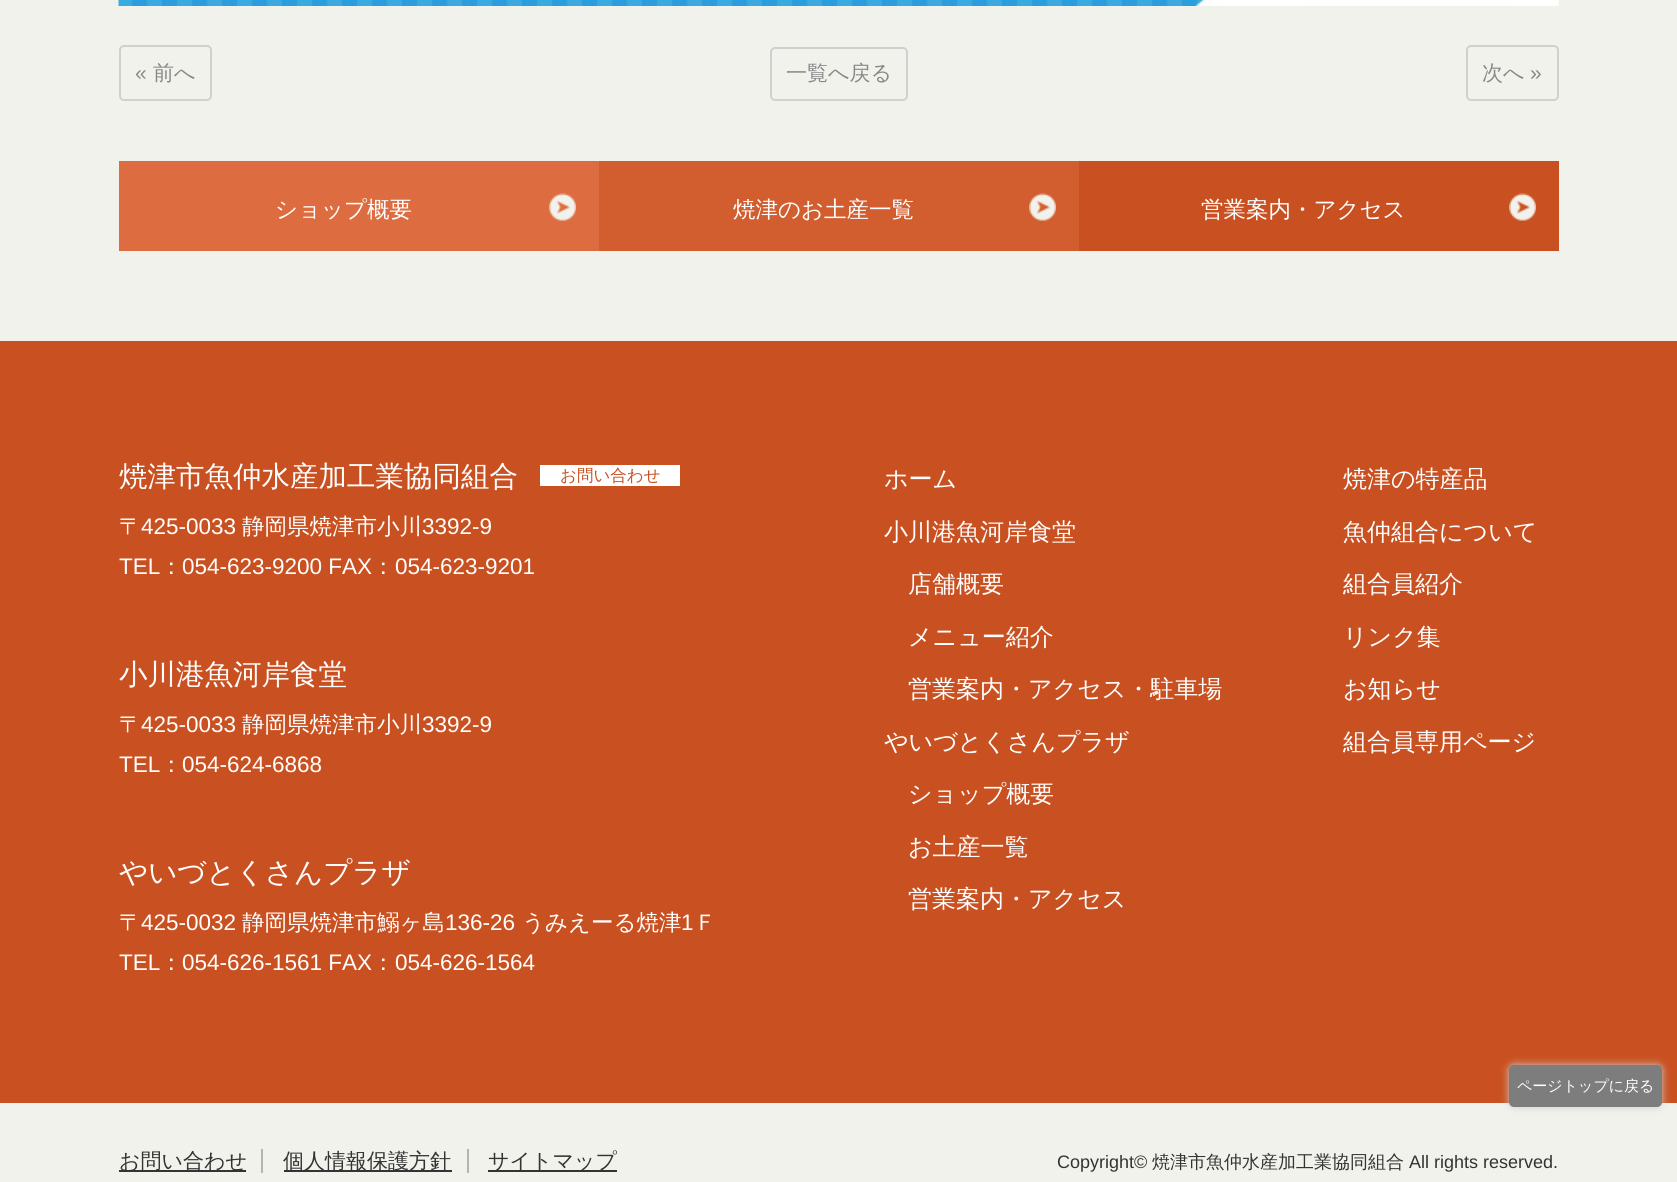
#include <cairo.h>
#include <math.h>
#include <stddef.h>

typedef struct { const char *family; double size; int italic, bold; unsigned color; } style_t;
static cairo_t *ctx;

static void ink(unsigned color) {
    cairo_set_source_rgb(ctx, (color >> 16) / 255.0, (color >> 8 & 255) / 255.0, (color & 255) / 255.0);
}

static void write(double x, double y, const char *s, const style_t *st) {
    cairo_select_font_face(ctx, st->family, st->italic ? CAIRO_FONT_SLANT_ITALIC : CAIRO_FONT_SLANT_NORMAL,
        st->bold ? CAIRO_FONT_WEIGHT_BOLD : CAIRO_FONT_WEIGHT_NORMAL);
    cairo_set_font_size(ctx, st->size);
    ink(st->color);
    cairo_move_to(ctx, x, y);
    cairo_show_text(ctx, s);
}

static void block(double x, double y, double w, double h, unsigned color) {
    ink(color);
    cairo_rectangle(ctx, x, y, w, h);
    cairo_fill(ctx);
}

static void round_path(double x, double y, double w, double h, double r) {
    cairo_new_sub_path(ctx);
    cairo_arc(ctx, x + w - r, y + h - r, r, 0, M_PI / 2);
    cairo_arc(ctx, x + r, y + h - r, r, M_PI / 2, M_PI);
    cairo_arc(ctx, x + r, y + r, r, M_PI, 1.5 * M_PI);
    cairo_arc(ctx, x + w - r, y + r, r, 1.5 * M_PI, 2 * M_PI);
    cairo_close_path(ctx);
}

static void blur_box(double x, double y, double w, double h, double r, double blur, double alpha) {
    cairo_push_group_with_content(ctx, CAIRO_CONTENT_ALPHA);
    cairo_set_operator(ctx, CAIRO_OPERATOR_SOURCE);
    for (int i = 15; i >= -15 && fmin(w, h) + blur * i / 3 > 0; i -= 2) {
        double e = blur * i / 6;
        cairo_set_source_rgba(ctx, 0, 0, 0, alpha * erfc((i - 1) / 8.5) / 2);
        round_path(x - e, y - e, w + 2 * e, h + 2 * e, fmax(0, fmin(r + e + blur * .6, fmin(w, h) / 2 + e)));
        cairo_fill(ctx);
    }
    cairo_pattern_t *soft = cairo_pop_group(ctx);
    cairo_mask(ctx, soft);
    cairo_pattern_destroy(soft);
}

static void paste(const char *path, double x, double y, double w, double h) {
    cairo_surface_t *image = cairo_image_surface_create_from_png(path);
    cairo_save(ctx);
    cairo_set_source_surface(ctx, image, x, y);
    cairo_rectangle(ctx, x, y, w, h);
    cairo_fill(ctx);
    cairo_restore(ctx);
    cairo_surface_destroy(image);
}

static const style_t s1 = {"Liberation Sans", 21, 0, 0, 0x888888};
static const style_t s2 = {"WenQuanYi Zen Hei Medium", 21, 0, 0, 0x888888};
static const style_t s3 = {"WenQuanYi Zen Hei Medium", 22.5, 0, 0, 0xffffff};
static const style_t s4 = {"WenQuanYi Zen Hei Medium", 28.5, 0, 0, 0xffffff};
static const style_t s5 = {"WenQuanYi Zen Hei Medium", 16.5, 0, 0, 0xc95121};
static const style_t s6 = {"Liberation Sans", 22.5, 0, 0, 0xffffff};
static const style_t s7 = {"WenQuanYi Zen Hei Medium", 24, 0, 0, 0xffffff};
static const style_t s8 = {"WenQuanYi Zen Hei Medium", 21, 0, 0, 0x333333};
static const style_t s9 = {"Liberation Sans", 18, 0, 0, 0x333333};
static const style_t s10 = {"WenQuanYi Zen Hei Medium", 18, 0, 0, 0x333333};
static const style_t s11 = {"WenQuanYi Zen Hei Medium", 15, 0, 0, 0xffffff};

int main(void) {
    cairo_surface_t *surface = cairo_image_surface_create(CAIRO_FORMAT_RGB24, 1677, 1182);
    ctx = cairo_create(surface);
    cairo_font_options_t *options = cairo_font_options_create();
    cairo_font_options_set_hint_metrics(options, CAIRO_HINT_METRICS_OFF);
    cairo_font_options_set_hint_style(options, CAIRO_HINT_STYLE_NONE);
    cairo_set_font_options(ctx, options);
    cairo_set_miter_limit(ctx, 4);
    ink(0xf2f2ed);
    cairo_paint(ctx);
    paste("pic1.png", 118, 0, 1441, 6);
    round_path(120, 46, 91, 54, 4);
    ink(0xd0d0d0);
    cairo_stroke(ctx);
    write(135, 80, "«", &s1);
    write(153, 80, "前へ", &s2);
    round_path(1467, 46, 91, 54, 4);
    ink(0xd0d0d0);
    cairo_stroke(ctx);
    write(1482, 80, "次へ", &s2);
    write(1530, 80, "»", &s1);
    round_path(771, 48, 136, 52, 4);
    ink(0xd0d0d0);
    cairo_stroke(ctx);
    write(786, 80, "一覧へ戻る", &s2);
    block(119, 161, 480, 90, 0xdd6d40);
    paste("pic2.png", 549, 193, 27, 28);
    write(275, 217, "ショップ概要", &s3);
    block(599, 161, 480, 90, 0xd25e2f);
    paste("pic3.png", 1029, 193, 27, 28);
    write(733, 217, "焼津のお土産一覧", &s3);
    block(1079, 161, 480, 90, 0xc95121);
    paste("pic4.png", 1509, 193, 27, 28);
    write(1201, 217, "営業案内・アクセス", &s3);
    block(0, 341, 1677, 762, 0xc95121);
    write(119, 486, "焼津市魚仲水産加工業協同組合", &s4);
    block(540, 465, 140, 21, 0xffffff);
    write(560, 481, "お問い合わせ", &s5);
    write(119, 534, "〒", &s3);
    write(141, 534, "425-0033", &s6);
    write(242, 534, "静岡県焼津市小川", &s3);
    write(422, 534, "3392-9", &s6);
    write(119, 574, "TEL", &s6);
    write(160, 574, "：", &s3);
    write(182, 574, "054-623-9200 FAX", &s6);
    write(372, 574, "：", &s3);
    write(395, 574, "054-623-9201", &s6);
    write(119, 684, "小川港魚河岸食堂", &s4);
    write(119, 732, "〒", &s3);
    write(141, 732, "425-0033", &s6);
    write(242, 732, "静岡県焼津市小川", &s3);
    write(422, 732, "3392-9", &s6);
    write(119, 772, "TEL", &s6);
    write(160, 772, "：", &s3);
    write(182, 772, "054-624-6868", &s6);
    write(119, 882, "やいづとくさんプラザ", &s4);
    write(119, 930, "〒", &s3);
    write(141, 930, "425-0032", &s6);
    write(242, 930, "静岡県焼津市鰯ヶ島", &s3);
    write(445, 930, "136-26", &s6);
    write(522, 930, "うみえーる焼津", &s3);
    write(681, 930, "1", &s6);
    write(694, 930, "Ｆ", &s3);
    write(119, 970, "TEL", &s6);
    write(160, 970, "：", &s3);
    write(182, 970, "054-626-1561 FAX", &s6);
    write(372, 970, "：", &s3);
    write(395, 970, "054-626-1564", &s6);
    write(884, 487, "ホーム", &s7);
    write(884, 540, "小川港魚河岸食堂", &s7);
    write(908, 592, "店舗概要", &s7);
    write(908, 645, "メニュー紹介", &s7);
    write(908, 697, "営業案内・アクセス・駐車場", &s7);
    write(884, 750, "やいづとくさんプラザ", &s7);
    write(908, 802, "ショップ概要", &s7);
    write(908, 855, "お土産一覧", &s7);
    write(908, 907, "営業案内・アクセス", &s7);
    write(1343, 487, "焼津の特産品", &s7);
    write(1343, 540, "魚仲組合について", &s7);
    cairo_save(ctx);
    cairo_rectangle(ctx, 1343, 453, 216, 315);
    cairo_clip(ctx);
    write(1343, 592, "組合員紹介", &s7);
    cairo_restore(ctx);
    write(1343, 645, "リンク集", &s7);
    write(1343, 697, "お知らせ", &s7);
    cairo_save(ctx);
    cairo_rectangle(ctx, 1343, 453, 216, 315);
    cairo_clip(ctx);
    write(1343, 750, "組合員専用ページ", &s7);
    cairo_restore(ctx);
    block(119, 1170, 127, 2, 0x333333);
    write(119, 1168, "お問い合わせ", &s8);
    block(261, 1149, 2, 24, 0xb3b3b3);
    block(284, 1170, 168, 2, 0x333333);
    write(283, 1168, "個人情報保護方針", &s8);
    block(467, 1149, 2, 24, 0xb3b3b3);
    block(488, 1170, 129, 2, 0x333333);
    write(488, 1168, "サイトマップ", &s8);
    write(1057, 1168, "Copyright©", &s9);
    write(1152, 1168, "焼津市魚仲水産加工業協同組合", &s10);
    write(1409, 1168, "All rights reserved.", &s9);
    ink(0xcccccc);
    blur_box(1509, 1065, 153, 42, 5, 4, 1);
    ink(0x7d7d7d);
    round_path(1509, 1065, 153, 42, 5);
    cairo_fill(ctx);
    write(1517, 1091, "ページトップに戻る", &s11);
    cairo_surface_write_to_png(surface, "screenshot.png");
    cairo_font_options_destroy(options);
    cairo_destroy(ctx);
    cairo_surface_destroy(surface);
    return 0;
}
